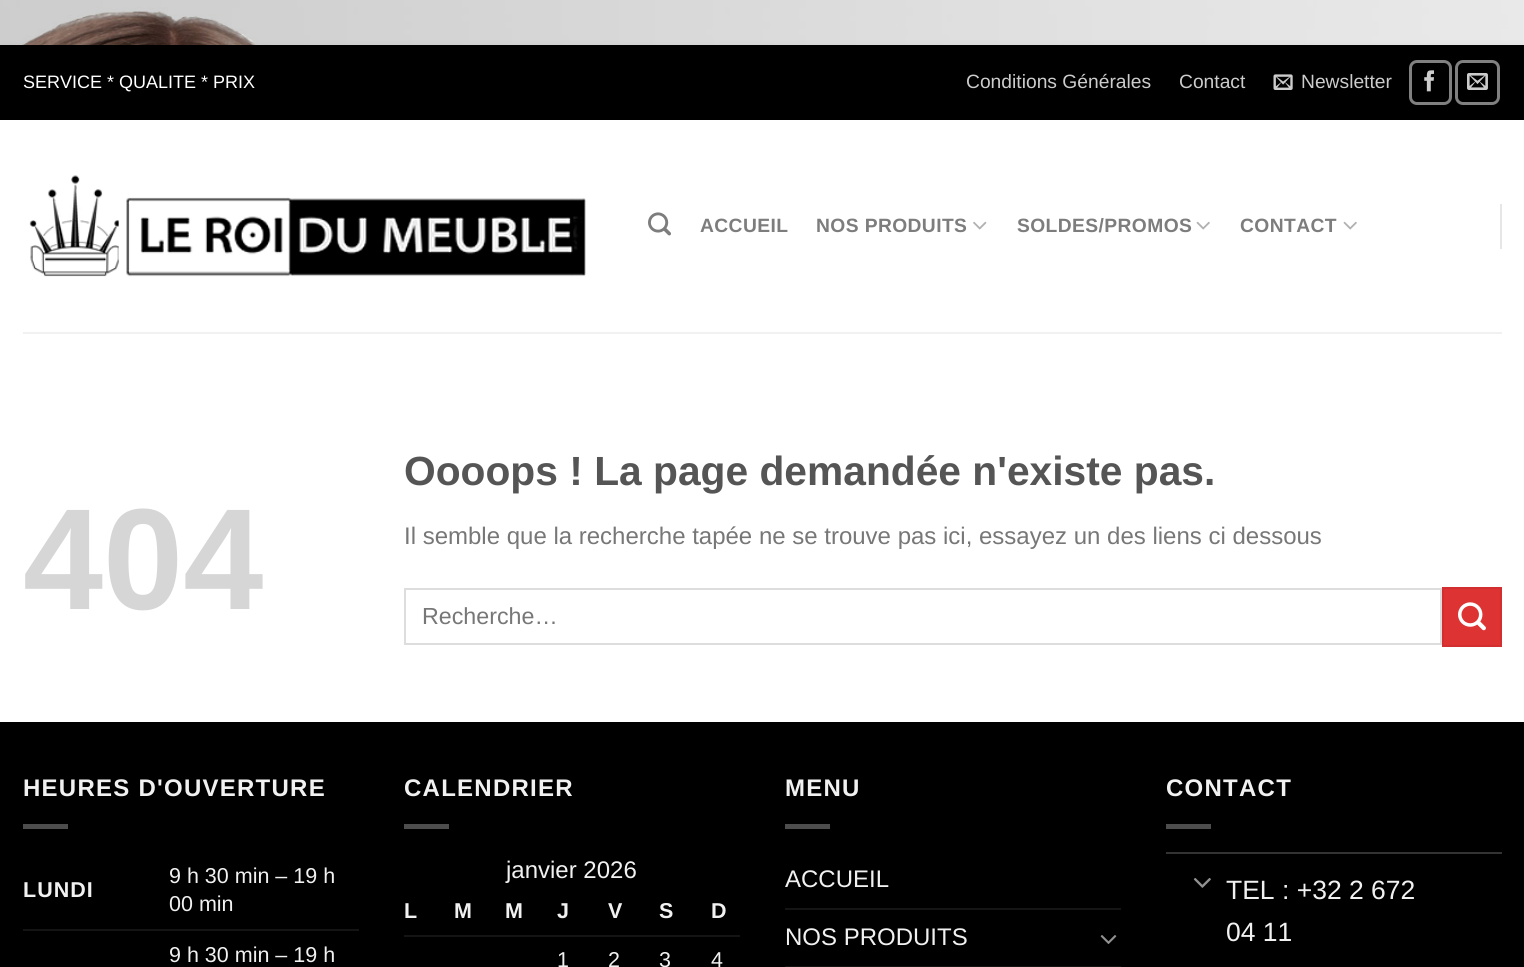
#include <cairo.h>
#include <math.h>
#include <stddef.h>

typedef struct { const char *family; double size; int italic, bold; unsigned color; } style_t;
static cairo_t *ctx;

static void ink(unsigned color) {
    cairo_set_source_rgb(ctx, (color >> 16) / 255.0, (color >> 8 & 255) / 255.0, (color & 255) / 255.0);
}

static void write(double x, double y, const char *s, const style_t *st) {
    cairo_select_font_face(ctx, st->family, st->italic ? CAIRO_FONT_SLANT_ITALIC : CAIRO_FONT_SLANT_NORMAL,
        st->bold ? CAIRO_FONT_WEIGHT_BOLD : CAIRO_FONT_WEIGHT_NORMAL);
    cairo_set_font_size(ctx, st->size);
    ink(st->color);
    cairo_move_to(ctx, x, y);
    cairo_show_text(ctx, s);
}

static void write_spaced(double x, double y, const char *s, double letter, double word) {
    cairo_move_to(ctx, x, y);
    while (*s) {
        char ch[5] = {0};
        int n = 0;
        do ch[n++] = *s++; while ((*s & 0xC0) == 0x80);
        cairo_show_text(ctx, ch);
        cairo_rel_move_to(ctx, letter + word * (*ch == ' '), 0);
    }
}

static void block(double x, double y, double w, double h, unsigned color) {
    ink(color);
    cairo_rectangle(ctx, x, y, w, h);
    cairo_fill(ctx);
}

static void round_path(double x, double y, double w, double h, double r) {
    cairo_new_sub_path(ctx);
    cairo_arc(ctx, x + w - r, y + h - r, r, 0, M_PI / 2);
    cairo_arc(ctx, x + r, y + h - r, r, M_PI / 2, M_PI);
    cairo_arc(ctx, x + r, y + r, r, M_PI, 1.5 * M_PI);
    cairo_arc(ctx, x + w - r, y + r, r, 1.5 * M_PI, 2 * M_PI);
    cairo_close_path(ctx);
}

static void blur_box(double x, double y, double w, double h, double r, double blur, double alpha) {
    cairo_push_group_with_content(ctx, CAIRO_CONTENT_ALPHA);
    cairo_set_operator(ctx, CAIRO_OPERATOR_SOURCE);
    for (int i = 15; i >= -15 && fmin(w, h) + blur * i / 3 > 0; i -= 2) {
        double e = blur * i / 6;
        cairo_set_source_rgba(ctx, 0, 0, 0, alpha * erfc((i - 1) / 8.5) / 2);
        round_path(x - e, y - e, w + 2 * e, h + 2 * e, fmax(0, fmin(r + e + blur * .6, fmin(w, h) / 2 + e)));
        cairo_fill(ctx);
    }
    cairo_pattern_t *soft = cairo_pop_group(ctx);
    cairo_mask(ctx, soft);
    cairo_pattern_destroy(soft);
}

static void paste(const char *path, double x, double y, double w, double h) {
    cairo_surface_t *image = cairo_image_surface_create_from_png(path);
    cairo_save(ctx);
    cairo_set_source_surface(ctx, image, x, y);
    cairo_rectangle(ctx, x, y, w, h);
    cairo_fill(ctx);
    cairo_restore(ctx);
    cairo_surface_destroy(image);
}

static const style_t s1 = {"Liberation Sans", 18, 0, 0, 0xffffff};
static const style_t s2 = {"Liberation Sans", 19.25, 0, 0, 0xcccccc};
static const style_t s3 = {"Liberation Sans", 144, 0, 1, 0xd6d6d6};
static const style_t s4 = {"Liberation Sans", 40.75, 0, 1, 0x555555};
static const style_t s5 = {"Liberation Sans", 24, 0, 0, 0x777777};
static const style_t s6 = {"Liberation Sans", 23.25, 0, 0, 0x777777};
static const style_t s7 = {"Liberation Sans", 21.5, 0, 0, 0xf1f1f1};
static const style_t s8 = {"Liberation Sans", 24, 0, 0, 0xf1f1f1};
static const style_t s9 = {"Liberation Sans", 26.5, 0, 0, 0xf1f1f1};

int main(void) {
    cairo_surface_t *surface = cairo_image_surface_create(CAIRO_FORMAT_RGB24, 1524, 967);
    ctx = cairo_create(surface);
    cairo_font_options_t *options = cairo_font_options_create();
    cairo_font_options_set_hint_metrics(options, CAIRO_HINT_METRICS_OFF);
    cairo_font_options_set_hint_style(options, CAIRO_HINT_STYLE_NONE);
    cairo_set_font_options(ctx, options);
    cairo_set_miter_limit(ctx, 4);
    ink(0xffffff);
    cairo_paint(ctx);
    paste("pic1.png", 0, 0, 1524, 45);
    ink(0x000000);
    blur_box(0, 50, 1524, 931, 0, 4.5, 0.23);
    block(0, 120, 1524, 602, 0xffffff);
    block(0, 45, 1524, 75, 0x000000);
    write(23, 88, "SERVICE * QUALITE * PRIX", &s1);
    write(966, 88, "Conditions Générales", &s2);
    write(1179, 88, "Contact", &s2);
    paste("pic2.png", 1273, 74, 20, 16);
    write(1301, 88, "Newsletter", &s2);
    round_path(1410.5, 61.5, 40, 42, 6.5);
    ink(0x808080);
    cairo_set_line_width(ctx, 3);
    cairo_stroke(ctx);
    paste("pic3.png", 1424, 70, 10, 22);
    round_path(1456.5, 61.5, 42, 42, 6.5);
    cairo_stroke(ctx);
    paste("pic4.png", 1467, 73, 21, 17);
    paste("pic5.png", 29, 175, 557, 102);
    paste("pic6.png", 648, 212, 23, 24);
    cairo_select_font_face(ctx, "Liberation Sans", CAIRO_FONT_SLANT_NORMAL, CAIRO_FONT_WEIGHT_BOLD);
    ink(0x7d7d7d);
    write_spaced(700, 232, "ACCUEIL", 0.4, 0);
    write_spaced(816, 232, "NOS PRODUITS", 0.4, 0);
    paste("pic7.png", 973, 221, 14, 9);
    write_spaced(1017, 232, "SOLDES/PROMOS", 0.4, 0);
    paste("pic8.png", 1196, 221, 14, 9);
    write_spaced(1240, 232, "CONTACT", 0.4, 0);
    paste("pic8.png", 1343, 221, 14, 9);
    block(1500, 204, 2, 45, 0xe6e6e6);
    block(23, 332, 1479, 2, 0xf1f1f1);
    write(23, 609, "404", &s3);
    write(404, 485, "Oooops ! La page demandée n'existe pas.", &s4);
    write(404, 544, "Il semble que la recherche tapée ne se trouve pas ici, essayez un des liens ci dessous", &s5);
    cairo_rectangle(ctx, 405, 589, 1036, 55);
    ink(0xdddddd);
    cairo_set_line_width(ctx, 2);
    cairo_stroke(ctx);
    write(422, 624, "Recherche…", &s6);
    ink(0xdd3333);
    cairo_rectangle(ctx, 1443, 588, 58, 58);
    cairo_fill_preserve(ctx);
    ink(0xd23030);
    cairo_stroke(ctx);
    paste("pic9.png", 1458, 602, 28, 29);
    block(0, 722, 1524, 245, 0x000000);
    cairo_select_font_face(ctx, "Liberation Sans", CAIRO_FONT_SLANT_NORMAL, CAIRO_FONT_WEIGHT_BOLD);
    cairo_set_font_size(ctx, 24);
    ink(0xf1f1f1);
    write_spaced(23, 796, "HEURES D'OUVERTURE", 1.25, 0);
    block(23, 824, 45, 5, 0x4d4d4d);
    block(23, 929, 336, 2, 0x141414);
    cairo_set_font_size(ctx, 21.5);
    ink(0xf1f1f1);
    write_spaced(23, 897, "LUNDI", 1, 0);
    write(169, 883, "9 h 30 min – 19 h", &s7);
    write(169, 911, "00 min", &s7);
    write(169, 962, "9 h 30 min – 19 h", &s7);
    cairo_select_font_face(ctx, "Liberation Sans", CAIRO_FONT_SLANT_NORMAL, CAIRO_FONT_WEIGHT_BOLD);
    cairo_set_font_size(ctx, 24);
    write_spaced(404, 796, "CALENDRIER", 1.25, 0);
    block(404, 824, 45, 5, 0x4d4d4d);
    write(506, 878, "janvier 2026", &s8);
    block(404, 935, 336, 2, 0x141414);
    cairo_select_font_face(ctx, "Liberation Sans", CAIRO_FONT_SLANT_NORMAL, CAIRO_FONT_WEIGHT_BOLD);
    cairo_set_font_size(ctx, 21.5);
    ink(0xf1f1f1);
    write_spaced(404, 918, "L", 1, 0);
    write_spaced(454, 918, "M", 1, 0);
    write_spaced(505, 918, "M", 1, 0);
    write_spaced(557, 918, "J", 1, 0);
    write_spaced(608, 918, "V", 1, 0);
    write_spaced(659, 918, "S", 1, 0);
    write_spaced(711, 918, "D", 1, 0);
    write(557, 967, "1", &s7);
    write(608, 967, "2", &s7);
    write(659, 967, "3", &s7);
    write(711, 967, "4", &s7);
    cairo_select_font_face(ctx, "Liberation Sans", CAIRO_FONT_SLANT_NORMAL, CAIRO_FONT_WEIGHT_BOLD);
    cairo_set_font_size(ctx, 24);
    write_spaced(785, 796, "MENU", 1.25, 0);
    block(785, 824, 45, 5, 0x4d4d4d);
    write(785, 887, "ACCUEIL", &s8);
    block(785, 908, 336, 2, 0x141414);
    write(785, 945, "NOS PRODUITS", &s8);
    paste("pic10.png", 1100, 935, 17, 9);
    block(785, 966, 336, 1, 0x141414);
    cairo_select_font_face(ctx, "Liberation Sans", CAIRO_FONT_SLANT_NORMAL, CAIRO_FONT_WEIGHT_BOLD);
    ink(0xf1f1f1);
    write_spaced(1166, 796, "CONTACT", 1.25, 0);
    block(1166, 824, 45, 5, 0x4d4d4d);
    block(1166, 852, 336, 2, 0x333333);
    paste("pic11.png", 1193, 878, 18, 10);
    write(1226, 899, "TEL : +32 2 672", &s9);
    write(1226, 941, "04 11", &s9);
    cairo_surface_write_to_png(surface, "screenshot.png");
    cairo_font_options_destroy(options);
    cairo_destroy(ctx);
    cairo_surface_destroy(surface);
    return 0;
}
